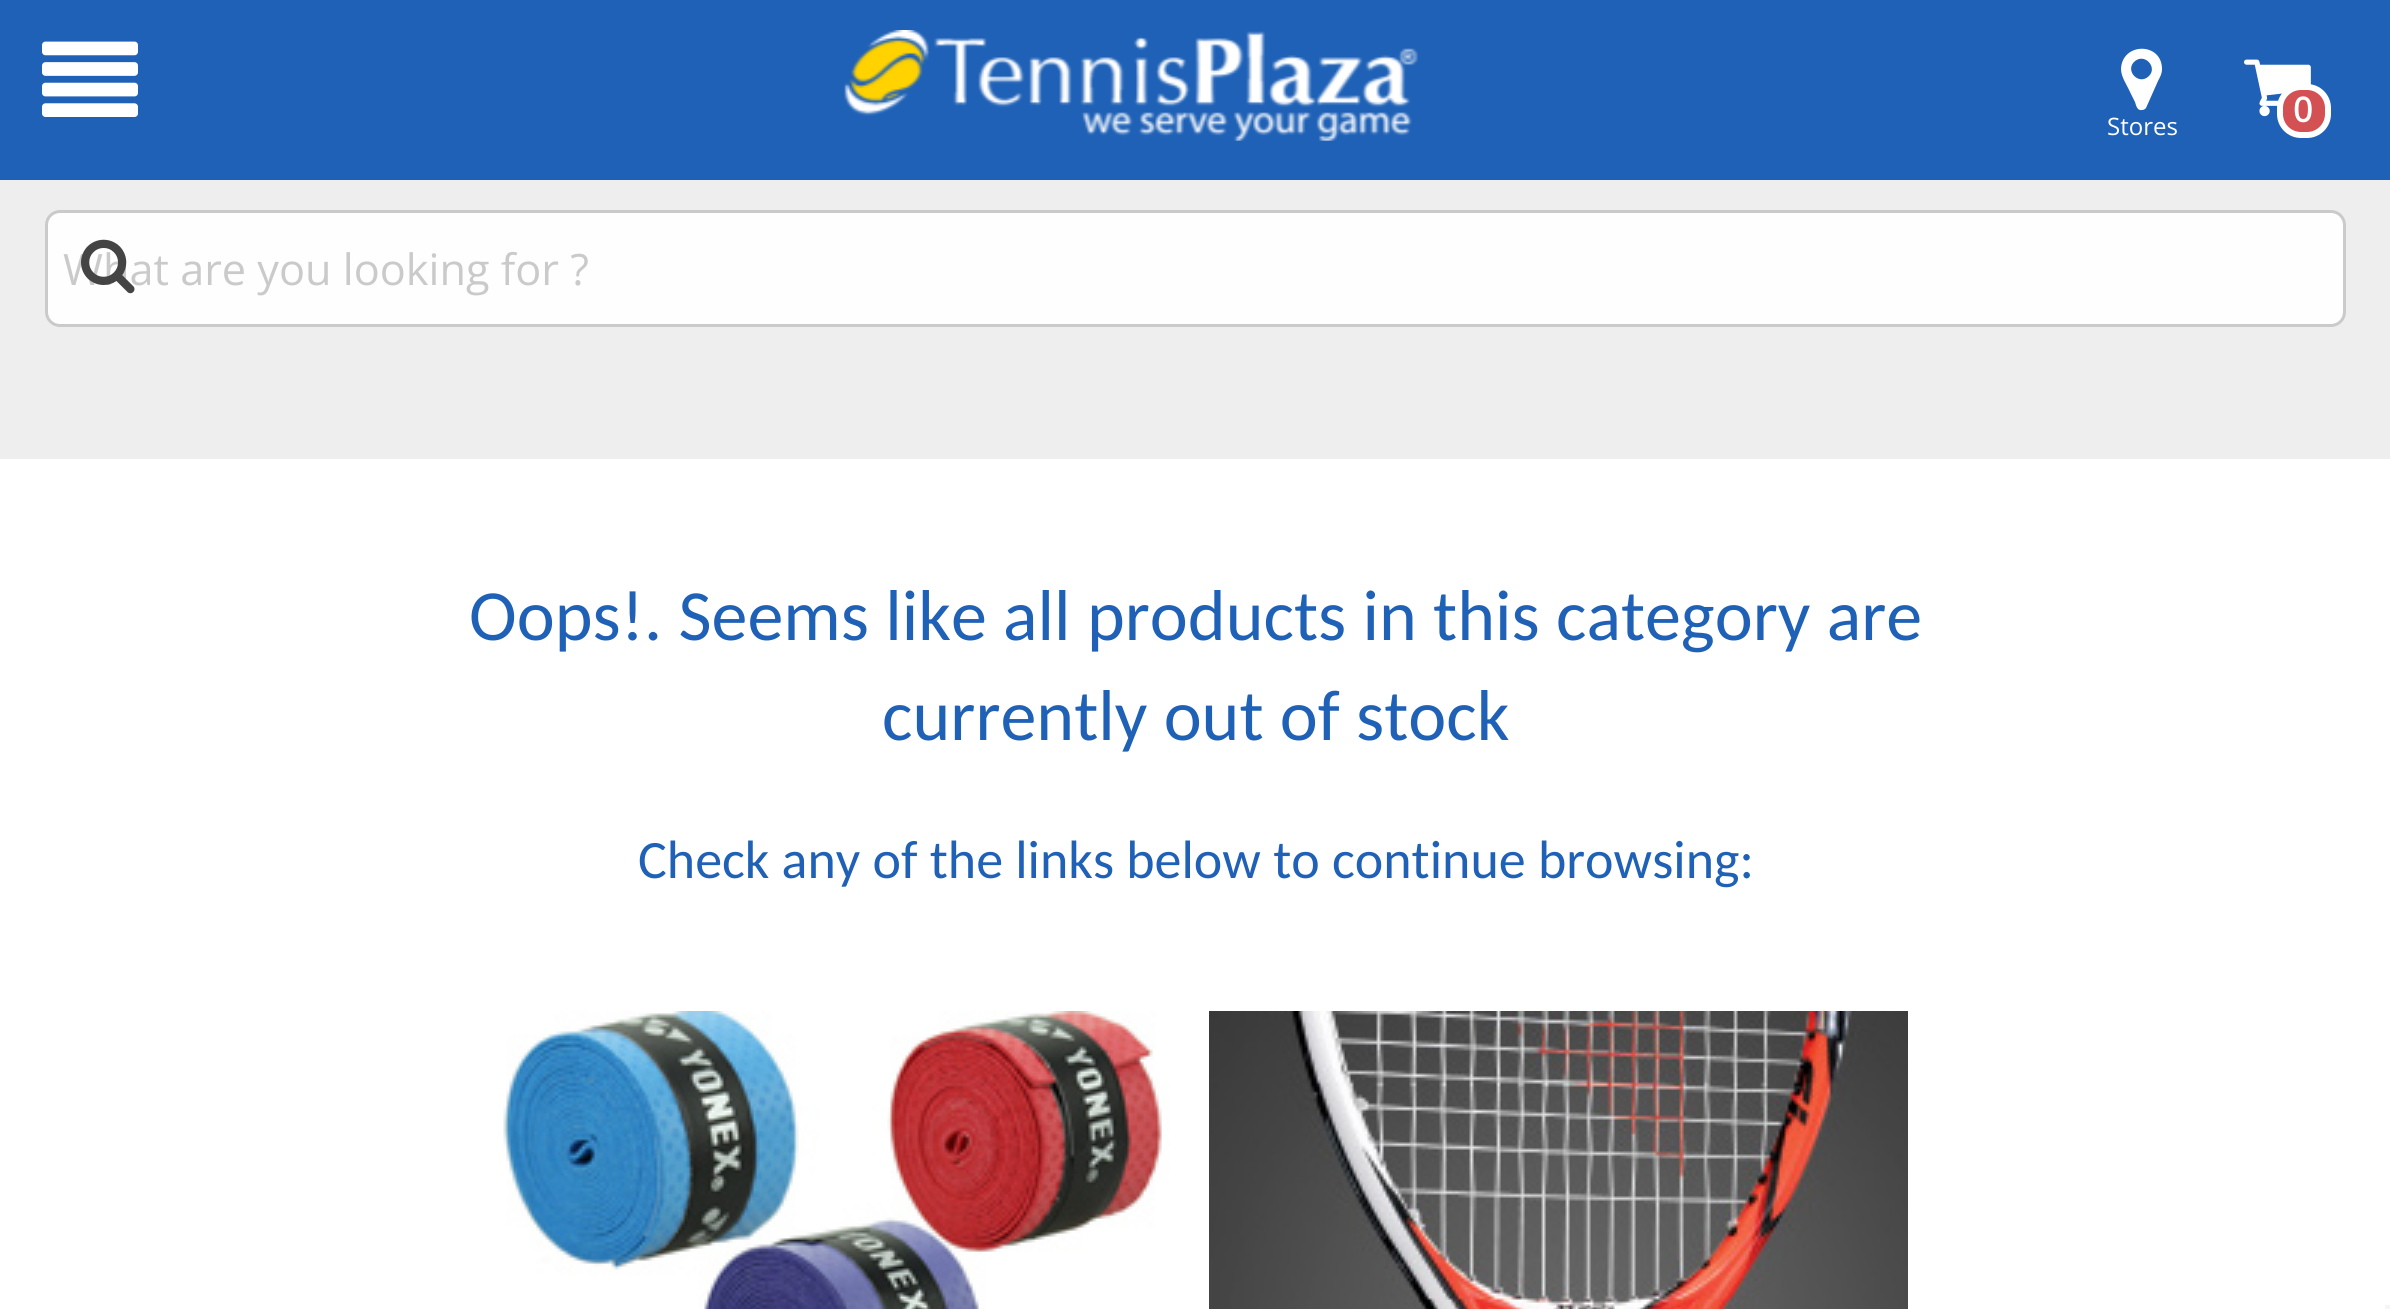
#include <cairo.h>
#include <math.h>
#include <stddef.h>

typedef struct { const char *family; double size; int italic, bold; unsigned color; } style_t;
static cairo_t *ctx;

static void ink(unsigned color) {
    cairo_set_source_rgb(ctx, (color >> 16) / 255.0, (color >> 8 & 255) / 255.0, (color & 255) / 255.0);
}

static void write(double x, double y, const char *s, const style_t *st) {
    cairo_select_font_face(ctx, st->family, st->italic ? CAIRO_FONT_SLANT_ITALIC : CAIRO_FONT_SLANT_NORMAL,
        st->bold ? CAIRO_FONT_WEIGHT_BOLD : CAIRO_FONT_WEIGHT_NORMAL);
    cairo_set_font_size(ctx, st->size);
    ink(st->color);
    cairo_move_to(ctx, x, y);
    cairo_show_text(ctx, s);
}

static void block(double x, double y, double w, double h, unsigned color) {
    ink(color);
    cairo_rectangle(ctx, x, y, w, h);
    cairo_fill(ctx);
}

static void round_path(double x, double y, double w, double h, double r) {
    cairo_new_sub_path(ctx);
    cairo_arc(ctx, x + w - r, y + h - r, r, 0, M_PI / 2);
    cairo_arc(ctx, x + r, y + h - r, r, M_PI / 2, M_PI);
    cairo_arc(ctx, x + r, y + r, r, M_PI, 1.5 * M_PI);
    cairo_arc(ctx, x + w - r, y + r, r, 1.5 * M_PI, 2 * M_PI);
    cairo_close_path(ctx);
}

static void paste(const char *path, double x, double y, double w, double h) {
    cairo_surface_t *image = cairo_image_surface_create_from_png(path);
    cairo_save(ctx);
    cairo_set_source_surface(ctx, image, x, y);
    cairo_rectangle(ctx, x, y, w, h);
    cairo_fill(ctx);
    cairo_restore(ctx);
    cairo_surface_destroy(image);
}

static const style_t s1 = {"Open Sans", 34, 0, 1, 0xffffff};
static const style_t s2 = {"Open Sans", 24, 0, 0, 0xffffff};
static const style_t s3 = {"Open Sans", 43.25, 0, 0, 0xcacaca};
static const style_t s4 = {"Carlito", 72, 0, 0, 0x1f61b6};
static const style_t s5 = {"Carlito", 54, 0, 0, 0x1f61b6};

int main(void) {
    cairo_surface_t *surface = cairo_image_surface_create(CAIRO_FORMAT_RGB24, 2390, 1309);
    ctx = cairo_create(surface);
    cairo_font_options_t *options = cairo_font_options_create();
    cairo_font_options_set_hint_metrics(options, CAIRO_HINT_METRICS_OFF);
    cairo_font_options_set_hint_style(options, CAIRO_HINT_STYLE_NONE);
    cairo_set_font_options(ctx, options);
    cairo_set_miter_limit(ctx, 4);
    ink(0xeeeeee);
    cairo_paint(ctx);
    block(0, 0, 2390, 180, 0x1f61b6);
    paste("pic1.png", 42, 41, 96, 76);
    paste("pic2.png", 844, 30, 574, 111);
    paste("pic3.png", 2244, 59, 67, 58);
    ink(0xd35053);
    round_path(2280, 87, 48, 48, 21);
    cairo_fill_preserve(ctx);
    ink(0xffffff);
    cairo_set_line_width(ctx, 6);
    cairo_stroke(ctx);
    write(2293, 122, "0", &s1);
    cairo_new_path(ctx);
    cairo_move_to(ctx, 2149, 76);
    cairo_curve_to(ctx, 2158, 67, 2144, 52, 2134, 62);
    cairo_curve_to(ctx, 2125, 71, 2139, 86, 2149, 76);
    cairo_close_path(ctx);
    cairo_move_to(ctx, 2162, 69);
    cairo_curve_to(ctx, 2162, 74, 2160, 77, 2158, 81);
    cairo_line_to(ctx, 2146, 108);
    cairo_curve_to(ctx, 2145, 109, 2144, 110, 2142, 110);
    cairo_curve_to(ctx, 2137, 111, 2136, 105, 2135, 102);
    cairo_line_to(ctx, 2130, 92);
    cairo_curve_to(ctx, 2127, 85, 2121, 77, 2121, 69);
    cairo_curve_to(ctx, 2122, 42, 2162, 42, 2162, 69);
    cairo_close_path(ctx);
    cairo_fill(ctx);
    write(2107, 135, "Stores", &s2);
    ink(0xfefefe);
    round_path(46.5, 211.5, 2298, 114, 13.5);
    cairo_fill_preserve(ctx);
    ink(0xcacaca);
    cairo_set_line_width(ctx, 3);
    cairo_stroke(ctx);
    write(63, 285, "What are you looking for ?", &s3);
    paste("pic4.png", 81, 239, 54, 55);
    block(0, 459, 2390, 850, 0xffffff);
    write(469, 640, "Oops!. Seems like all products in this category are", &s4);
    write(882, 740, "currently out of stock", &s4);
    write(638, 878, "Check any of the links below to continue browsing:", &s5);
    paste("pic5.png", 503, 1011, 667, 298);
    paste("pic6.png", 1209, 1011, 699, 298);
    block(2385, 1305, 5, 4, 0xf5f5f5);
    cairo_surface_write_to_png(surface, "screenshot.png");
    cairo_font_options_destroy(options);
    cairo_destroy(ctx);
    cairo_surface_destroy(surface);
    return 0;
}
